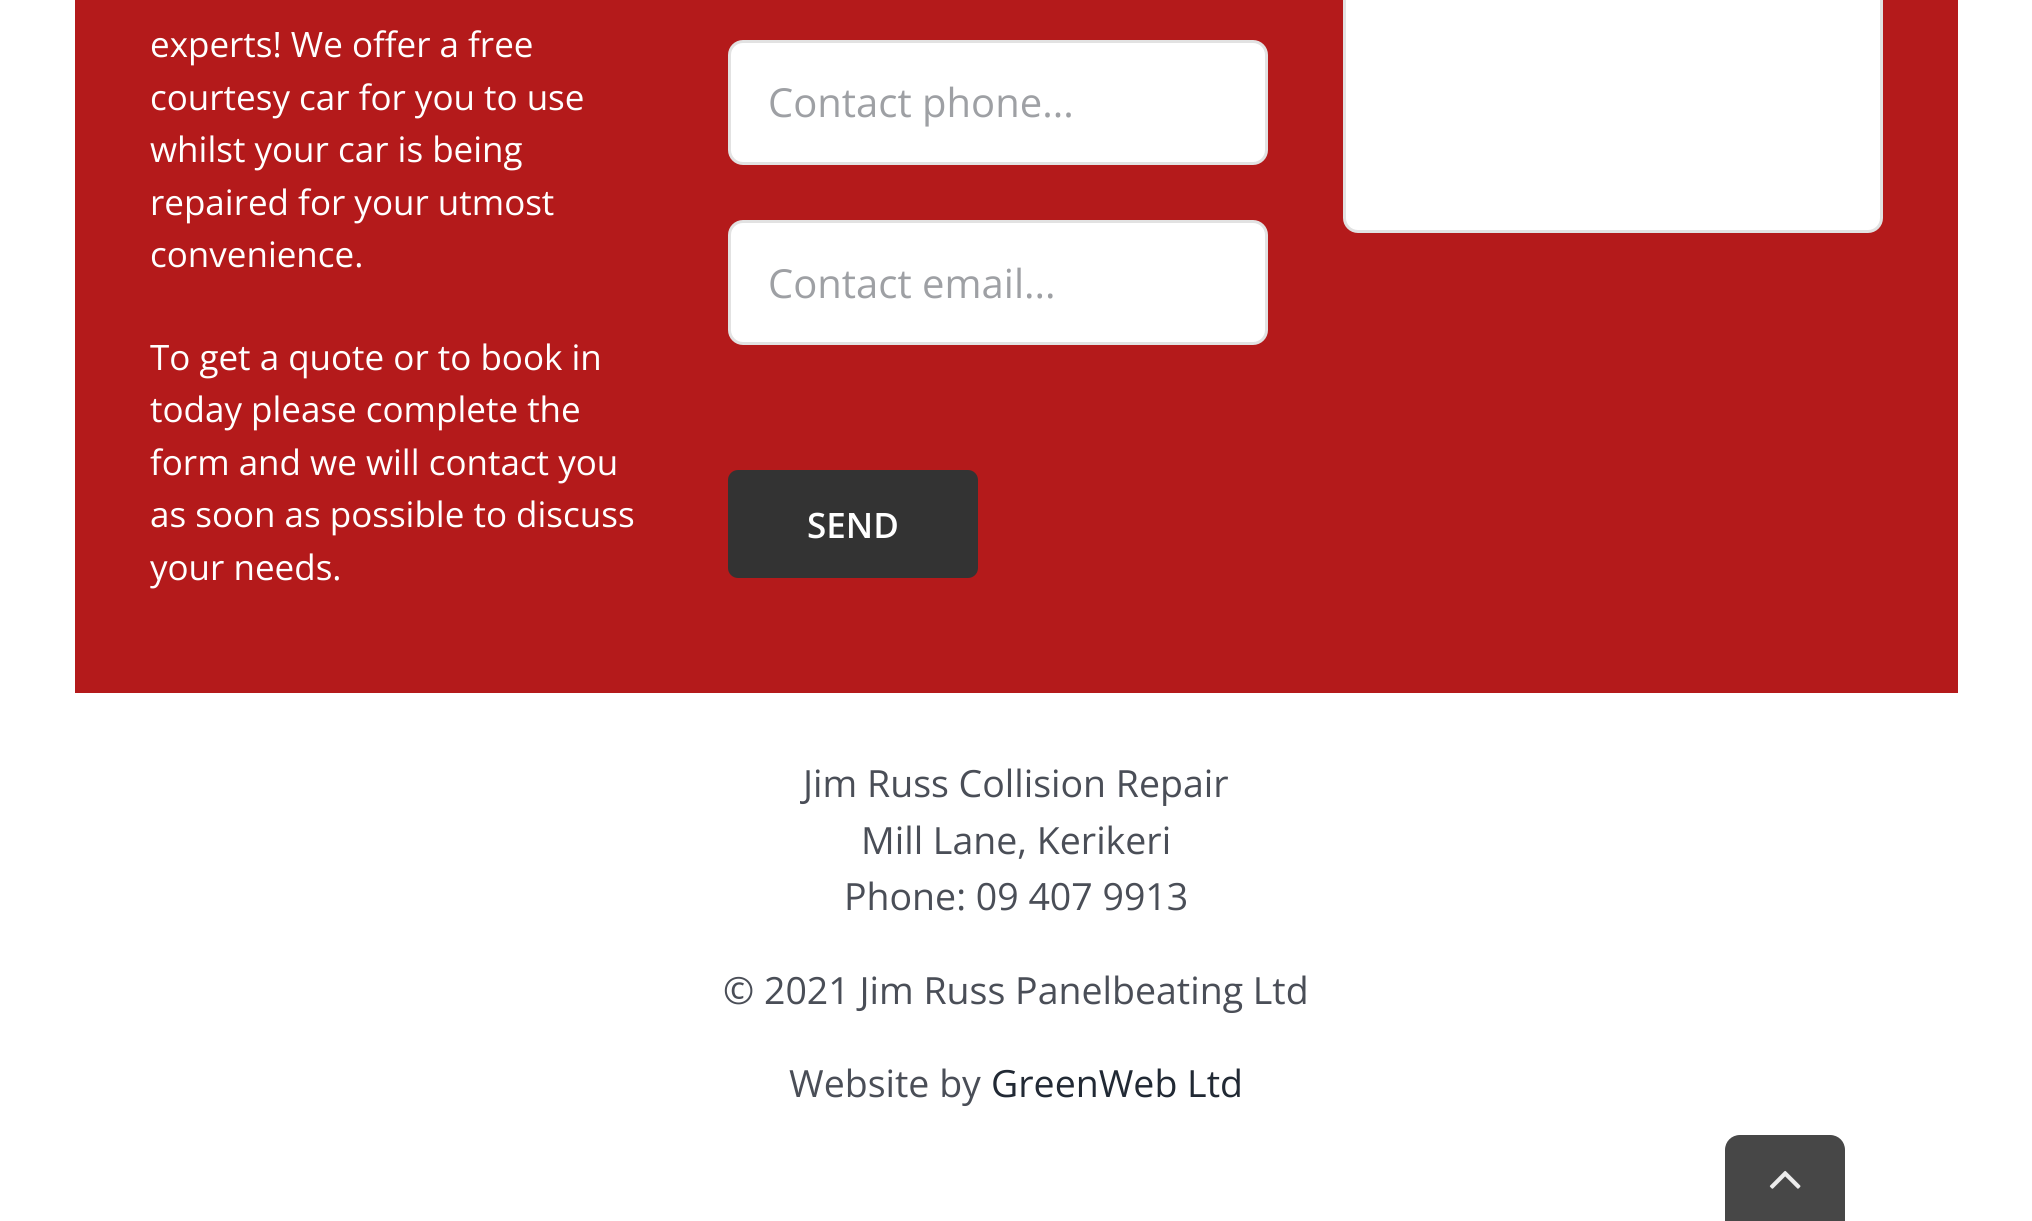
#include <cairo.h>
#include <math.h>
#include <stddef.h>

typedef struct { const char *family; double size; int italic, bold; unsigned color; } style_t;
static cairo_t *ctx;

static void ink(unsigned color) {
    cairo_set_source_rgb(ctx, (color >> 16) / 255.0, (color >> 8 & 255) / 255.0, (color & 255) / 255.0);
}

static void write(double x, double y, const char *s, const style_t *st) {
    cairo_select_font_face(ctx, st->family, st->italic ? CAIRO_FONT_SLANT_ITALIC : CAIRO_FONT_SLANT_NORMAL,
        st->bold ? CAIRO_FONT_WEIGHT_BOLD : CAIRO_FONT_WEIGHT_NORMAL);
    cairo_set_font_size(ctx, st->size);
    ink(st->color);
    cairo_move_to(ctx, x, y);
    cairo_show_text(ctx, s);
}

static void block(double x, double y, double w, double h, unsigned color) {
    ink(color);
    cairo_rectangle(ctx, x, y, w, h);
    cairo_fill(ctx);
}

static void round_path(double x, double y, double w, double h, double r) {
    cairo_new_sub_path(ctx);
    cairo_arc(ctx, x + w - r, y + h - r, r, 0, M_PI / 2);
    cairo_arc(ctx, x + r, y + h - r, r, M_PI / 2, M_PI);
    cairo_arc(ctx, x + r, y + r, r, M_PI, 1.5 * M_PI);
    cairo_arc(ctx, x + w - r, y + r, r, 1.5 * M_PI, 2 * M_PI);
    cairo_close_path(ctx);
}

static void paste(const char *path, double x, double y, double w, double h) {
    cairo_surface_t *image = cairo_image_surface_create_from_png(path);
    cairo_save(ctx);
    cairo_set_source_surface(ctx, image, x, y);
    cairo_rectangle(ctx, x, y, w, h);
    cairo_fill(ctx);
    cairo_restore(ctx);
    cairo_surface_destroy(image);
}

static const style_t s1 = {"Open Sans", 35, 0, 0, 0xffffff};
static const style_t s2 = {"Open Sans", 40, 0, 0, 0x9ea0a4};
static const style_t s3 = {"Open Sans SemiBold", 35, 0, 0, 0xffffff};
static const style_t s4 = {"Open Sans", 37.5, 0, 0, 0x4a4e57};
static const style_t s5 = {"Open Sans", 37.5, 0, 0, 0x212934};

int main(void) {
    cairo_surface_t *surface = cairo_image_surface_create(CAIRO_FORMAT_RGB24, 2032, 1221);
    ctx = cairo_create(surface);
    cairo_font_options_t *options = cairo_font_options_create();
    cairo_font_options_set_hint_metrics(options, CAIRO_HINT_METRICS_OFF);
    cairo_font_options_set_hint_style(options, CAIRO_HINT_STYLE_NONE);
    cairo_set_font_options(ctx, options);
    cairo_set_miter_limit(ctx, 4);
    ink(0xffffff);
    cairo_paint(ctx);
    block(75, 0, 1883, 693, 0xb41a1b);
    write(150, 57, "experts! We offer a free", &s1);
    write(150, 110, "courtesy car for you to use", &s1);
    write(150, 162, "whilst your car is being", &s1);
    write(150, 215, "repaired for your utmost", &s1);
    write(150, 267, "convenience.", &s1);
    write(150, 370, "To get a quote or to book in", &s1);
    write(150, 422, "today please complete the", &s1);
    write(150, 475, "form and we will contact you", &s1);
    write(150, 527, "as soon as possible to discuss", &s1);
    write(150, 580, "your needs.", &s1);
    round_path(729.5, 41.5, 537, 122, 13.5);
    cairo_fill_preserve(ctx);
    ink(0xe2e2e2);
    cairo_set_line_width(ctx, 3);
    cairo_stroke(ctx);
    write(768, 117, "Contact phone...", &s2);
    ink(0xffffff);
    round_path(729.5, 221.5, 537, 122, 13.5);
    cairo_fill_preserve(ctx);
    ink(0xe2e2e2);
    cairo_stroke(ctx);
    write(768, 298, "Contact email...", &s2);
    ink(0xffffff);
    round_path(1344.5, -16.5, 537, 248, 13.5);
    cairo_fill_preserve(ctx);
    ink(0xe2e2e2);
    cairo_stroke(ctx);
    ink(0x333333);
    round_path(728, 470, 250, 108, 10);
    cairo_fill(ctx);
    write(807, 538, "SEND", &s3);
    write(803, 797, "Jim Russ Collision Repair", &s4);
    write(861, 854, "Mill Lane, Kerikeri", &s4);
    write(844, 910, "Phone: 09 407 9913", &s4);
    write(723, 1004, "© 2021 Jim Russ Panelbeating Ltd", &s4);
    write(789, 1097, "Website by", &s4);
    write(991, 1097, "GreenWeb Ltd", &s5);
    ink(0x474747);
    cairo_new_path(ctx);
    cairo_move_to(ctx, 1740, 1135);
    cairo_line_to(ctx, 1830, 1135);
    cairo_curve_to(ctx, 1838.5, 1135, 1845, 1141.5, 1845, 1150);
    cairo_line_to(ctx, 1845, 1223);
    cairo_line_to(ctx, 1725, 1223);
    cairo_line_to(ctx, 1725, 1150);
    cairo_curve_to(ctx, 1725, 1141.5, 1731.5, 1135, 1740, 1135);
    cairo_close_path(ctx);
    cairo_fill(ctx);
    paste("pic1.png", 1769, 1170, 32, 19);
    cairo_surface_write_to_png(surface, "screenshot.png");
    cairo_font_options_destroy(options);
    cairo_destroy(ctx);
    cairo_surface_destroy(surface);
    return 0;
}
